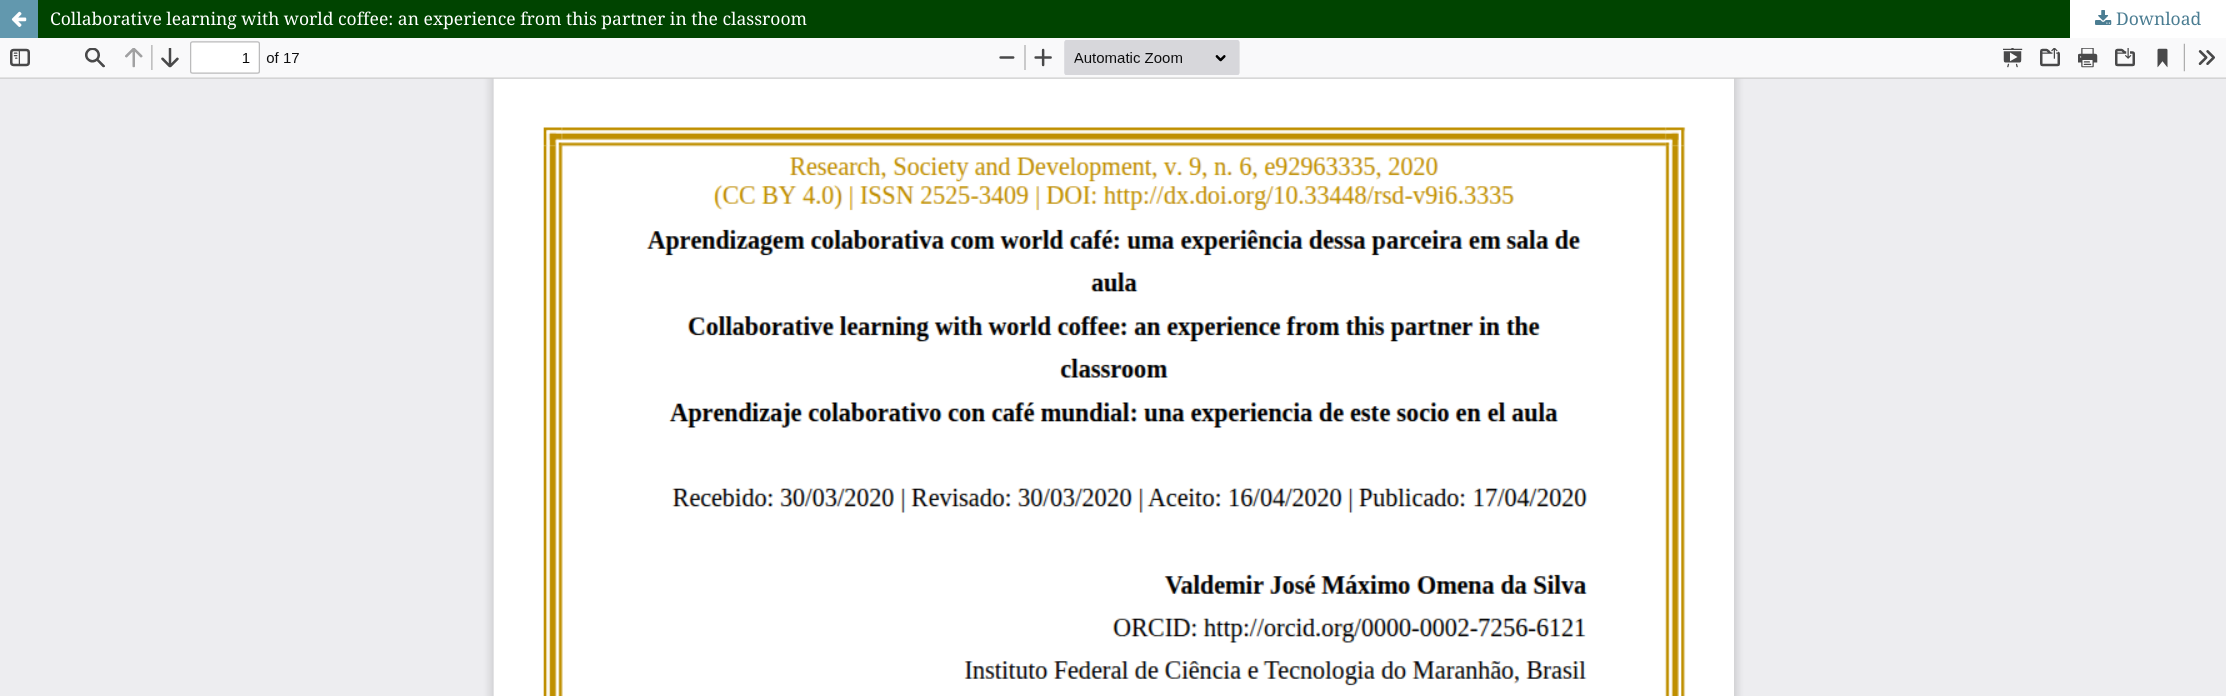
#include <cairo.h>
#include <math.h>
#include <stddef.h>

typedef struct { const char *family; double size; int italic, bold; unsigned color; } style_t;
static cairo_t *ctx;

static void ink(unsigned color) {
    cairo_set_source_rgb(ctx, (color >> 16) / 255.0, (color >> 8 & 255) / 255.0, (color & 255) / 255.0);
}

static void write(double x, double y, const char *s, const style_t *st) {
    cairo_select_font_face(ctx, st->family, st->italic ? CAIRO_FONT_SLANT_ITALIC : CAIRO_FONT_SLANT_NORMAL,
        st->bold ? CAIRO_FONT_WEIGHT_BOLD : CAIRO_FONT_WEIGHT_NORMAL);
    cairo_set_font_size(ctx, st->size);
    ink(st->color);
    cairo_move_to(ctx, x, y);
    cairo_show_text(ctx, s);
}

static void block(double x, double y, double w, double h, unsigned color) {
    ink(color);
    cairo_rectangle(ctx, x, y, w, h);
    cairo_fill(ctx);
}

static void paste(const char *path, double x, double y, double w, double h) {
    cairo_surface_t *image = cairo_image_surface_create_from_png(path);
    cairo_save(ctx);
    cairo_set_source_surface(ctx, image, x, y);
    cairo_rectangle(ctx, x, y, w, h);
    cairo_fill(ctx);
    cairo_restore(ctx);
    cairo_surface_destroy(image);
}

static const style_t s1 = {"Noto Serif", 17.5, 0, 0, 0xffffff};
static const style_t s2 = {"Noto Serif", 17.5, 0, 0, 0x4b7d92};

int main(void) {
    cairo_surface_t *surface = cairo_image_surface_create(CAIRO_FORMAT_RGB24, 2226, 696);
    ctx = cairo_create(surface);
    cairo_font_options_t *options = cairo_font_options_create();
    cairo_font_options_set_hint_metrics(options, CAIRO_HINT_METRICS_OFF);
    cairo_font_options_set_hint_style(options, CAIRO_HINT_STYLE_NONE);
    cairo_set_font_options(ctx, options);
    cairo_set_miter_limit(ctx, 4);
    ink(0xffffff);
    cairo_paint(ctx);
    block(38, 0, 2032, 38, 0x004400);
    block(0, 0, 38, 38, 0x6298ae);
    paste("pic1.png", 11, 11, 16, 16);
    write(50, 25, "Collaborative learning with world coffee: an experience from this partner in the classroom", &s1);
    paste("pic2.png", 2095, 10, 17, 15);
    write(2116, 25, "Download", &s2);
    paste("pic3.png", 0, 38, 2226, 658);
    cairo_surface_write_to_png(surface, "screenshot.png");
    cairo_font_options_destroy(options);
    cairo_destroy(ctx);
    cairo_surface_destroy(surface);
    return 0;
}
